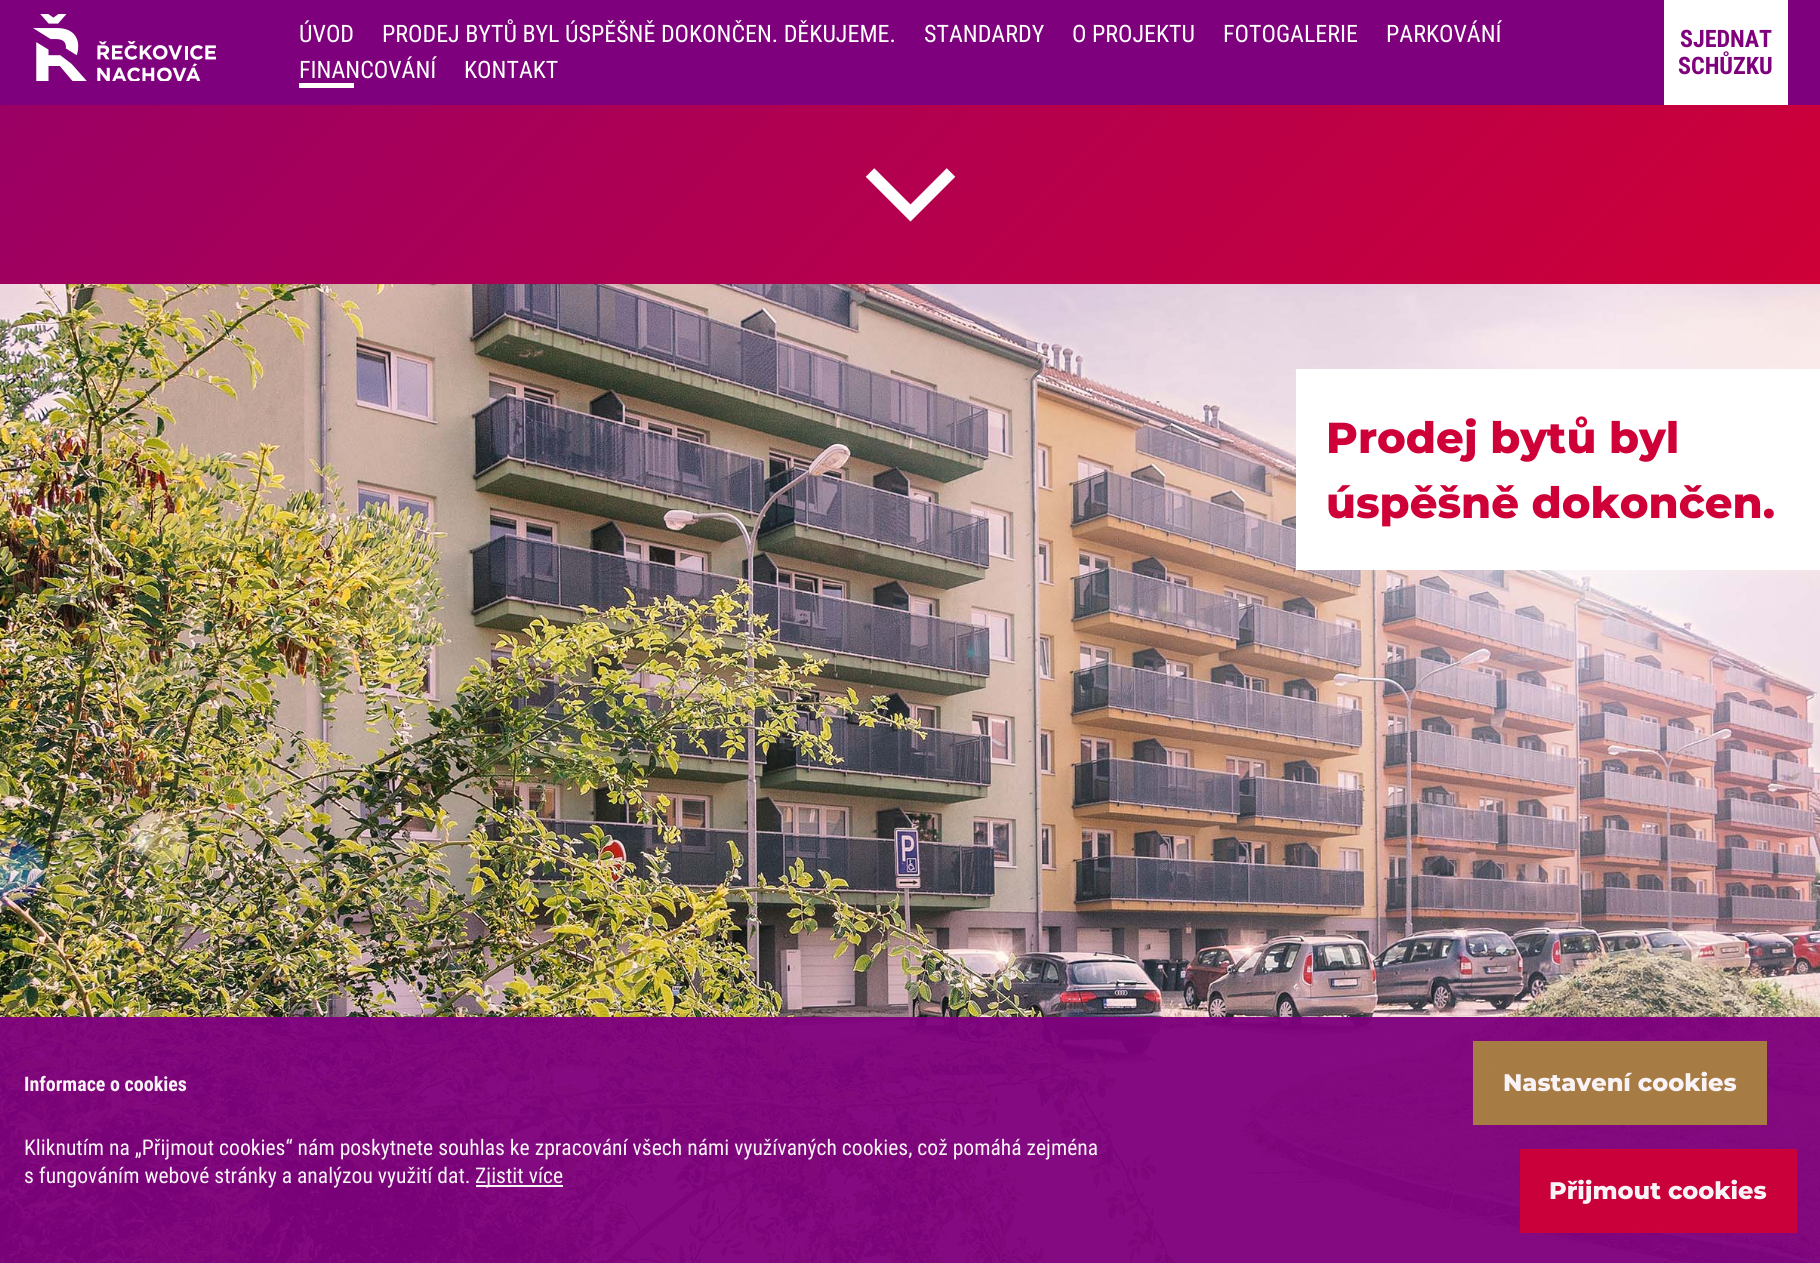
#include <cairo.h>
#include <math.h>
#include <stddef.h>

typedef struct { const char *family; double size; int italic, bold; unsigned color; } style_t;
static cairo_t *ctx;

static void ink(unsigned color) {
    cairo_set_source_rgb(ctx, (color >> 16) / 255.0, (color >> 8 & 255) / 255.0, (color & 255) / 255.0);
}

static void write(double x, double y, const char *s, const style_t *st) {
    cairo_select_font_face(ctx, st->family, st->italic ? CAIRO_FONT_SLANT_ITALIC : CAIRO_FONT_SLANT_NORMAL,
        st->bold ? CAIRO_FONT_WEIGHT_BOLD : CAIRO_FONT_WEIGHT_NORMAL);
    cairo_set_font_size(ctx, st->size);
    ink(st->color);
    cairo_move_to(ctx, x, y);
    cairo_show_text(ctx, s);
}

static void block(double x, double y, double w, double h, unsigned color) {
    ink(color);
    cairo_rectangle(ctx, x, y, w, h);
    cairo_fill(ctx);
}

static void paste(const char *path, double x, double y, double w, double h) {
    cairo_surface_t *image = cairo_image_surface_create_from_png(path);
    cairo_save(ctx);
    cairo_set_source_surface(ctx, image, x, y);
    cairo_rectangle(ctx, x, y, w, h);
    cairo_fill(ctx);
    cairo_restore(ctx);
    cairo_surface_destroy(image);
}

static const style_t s1 = {"Roboto Condensed", 24, 0, 0, 0xffffff};
static const style_t s2 = {"Roboto Condensed", 24, 0, 1, 0x7e007d};
static const style_t s3 = {"Montserrat Thin", 43.25, 0, 0, 0xce0037};
static const style_t s4 = {"Roboto Condensed", 20, 0, 1, 0xf9f3f8};
static const style_t s5 = {"Roboto Condensed", 21.6, 0, 0, 0xf9f3f8};
static const style_t s6 = {"Montserrat Thin", 24, 0, 0, 0xf9f3f8};

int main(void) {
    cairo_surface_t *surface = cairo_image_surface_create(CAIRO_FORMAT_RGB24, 1820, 1263);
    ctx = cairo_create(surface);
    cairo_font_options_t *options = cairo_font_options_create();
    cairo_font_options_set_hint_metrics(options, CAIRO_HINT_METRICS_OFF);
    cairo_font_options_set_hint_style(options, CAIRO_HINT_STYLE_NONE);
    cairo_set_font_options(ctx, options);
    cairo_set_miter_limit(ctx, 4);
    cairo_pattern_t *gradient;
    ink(0xffffff);
    cairo_paint(ctx);
    block(0, 0, 1820, 105, 0x7e007d);
    paste("pic1.png", 33, 14, 183, 67);
    write(299, 42, "ÚVOD", &s1);
    block(299, 83, 55, 5, 0xffffff);
    write(382, 42, "PRODEJ BYTŮ BYL ÚSPĚŠNĚ DOKONČEN. DĚKUJEME.", &s1);
    write(924, 42, "STANDARDY", &s1);
    write(1072, 42, "O PROJEKTU", &s1);
    write(1223, 42, "FOTOGALERIE", &s1);
    write(1386, 42, "PARKOVÁNÍ", &s1);
    write(299, 78, "FINANCOVÁNÍ", &s1);
    write(464, 78, "KONTAKT", &s1);
    block(1664, 0, 124, 105, 0xffffff);
    write(1680, 47, "SJEDNAT", &s2);
    write(1678, 74, "SCHŮZKU", &s2);
    gradient = cairo_pattern_create_linear(137, -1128, 1685, 420);
    cairo_pattern_add_color_stop_rgba(gradient, 0, 0.494, 0, 0.49, 1);
    cairo_pattern_add_color_stop_rgba(gradient, 1, 0.808, 0, 0.216, 1);
    cairo_set_source(ctx, gradient);
    cairo_pattern_destroy(gradient);
    cairo_rectangle(ctx, 0, 105, 1820, 179);
    cairo_fill(ctx);
    cairo_new_path(ctx);
    cairo_move_to(ctx, 870, 172.5);
    cairo_line_to(ctx, 910.5, 213);
    cairo_line_to(ctx, 951, 172.5);
    ink(0xffffff);
    cairo_set_line_width(ctx, 12.1);
    cairo_stroke(ctx);
    paste("pic2.png", 0, 284, 1820, 979);
    block(1296, 369, 524, 201, 0xffffff);
    write(1326, 453, "Prodej bytů byl", &s3);
    write(1326, 518, "úspěšně dokončen.", &s3);
    cairo_set_source_rgba(ctx, 0.494, 0, 0.49, 0.95);
    cairo_rectangle(ctx, 0, 1017, 1820, 246);
    cairo_fill(ctx);
    write(24, 1091, "Informace o cookies", &s4);
    write(24, 1155, "Kliknutím na „Přijmout cookies“ nám poskytnete souhlas ke zpracování všech námi využívaných cookies, což pomáhá zejména", &s5);
    write(24, 1183, "s fungováním webové stránky a analýzou využití dat.", &s5);
    cairo_set_source_rgba(ctx, 1, 1, 1, 0.95);
    cairo_rectangle(ctx, 476, 1185, 87, 2);
    cairo_fill(ctx);
    write(475, 1183, "Zjistit více", &s5);
    cairo_set_source_rgba(ctx, 0.659, 0.51, 0.255, 0.95);
    cairo_rectangle(ctx, 1473, 1041, 294, 84);
    cairo_fill(ctx);
    write(1503, 1091, "Nastavení cookies", &s6);
    cairo_set_source_rgba(ctx, 0.808, 0, 0.216, 0.95);
    cairo_rectangle(ctx, 1520, 1149, 277, 84);
    cairo_fill(ctx);
    write(1549, 1199, "Přijmout cookies", &s6);
    cairo_surface_write_to_png(surface, "screenshot.png");
    cairo_font_options_destroy(options);
    cairo_destroy(ctx);
    cairo_surface_destroy(surface);
    return 0;
}
